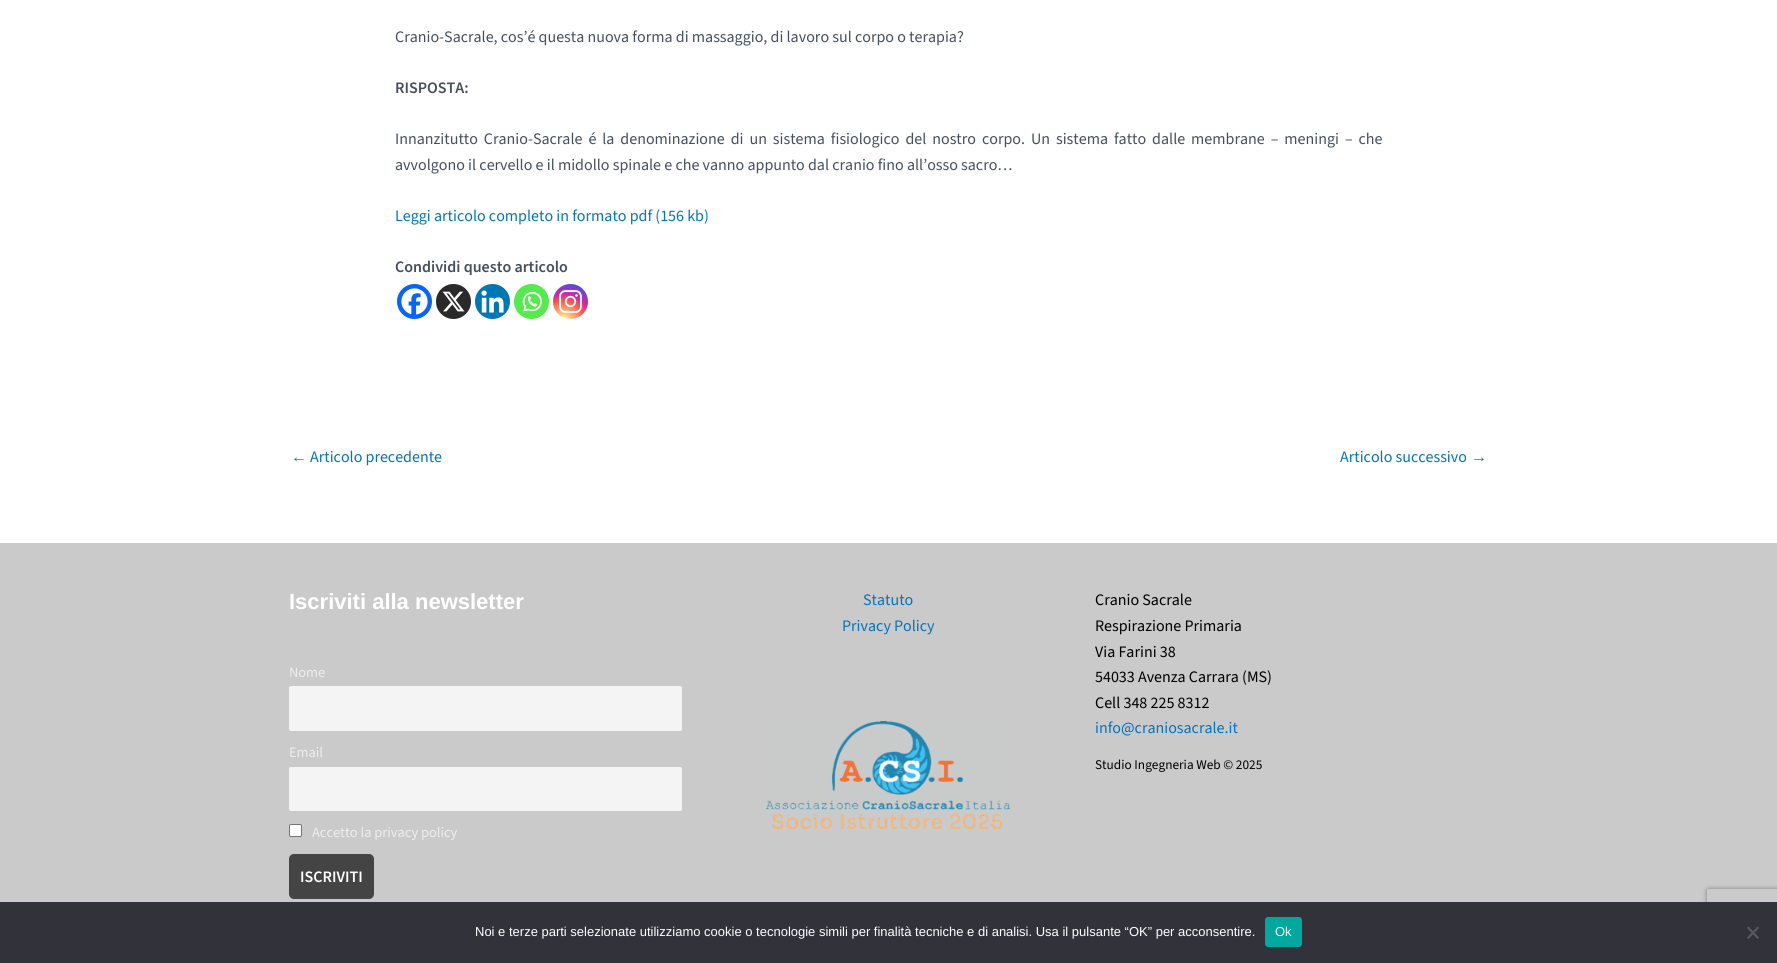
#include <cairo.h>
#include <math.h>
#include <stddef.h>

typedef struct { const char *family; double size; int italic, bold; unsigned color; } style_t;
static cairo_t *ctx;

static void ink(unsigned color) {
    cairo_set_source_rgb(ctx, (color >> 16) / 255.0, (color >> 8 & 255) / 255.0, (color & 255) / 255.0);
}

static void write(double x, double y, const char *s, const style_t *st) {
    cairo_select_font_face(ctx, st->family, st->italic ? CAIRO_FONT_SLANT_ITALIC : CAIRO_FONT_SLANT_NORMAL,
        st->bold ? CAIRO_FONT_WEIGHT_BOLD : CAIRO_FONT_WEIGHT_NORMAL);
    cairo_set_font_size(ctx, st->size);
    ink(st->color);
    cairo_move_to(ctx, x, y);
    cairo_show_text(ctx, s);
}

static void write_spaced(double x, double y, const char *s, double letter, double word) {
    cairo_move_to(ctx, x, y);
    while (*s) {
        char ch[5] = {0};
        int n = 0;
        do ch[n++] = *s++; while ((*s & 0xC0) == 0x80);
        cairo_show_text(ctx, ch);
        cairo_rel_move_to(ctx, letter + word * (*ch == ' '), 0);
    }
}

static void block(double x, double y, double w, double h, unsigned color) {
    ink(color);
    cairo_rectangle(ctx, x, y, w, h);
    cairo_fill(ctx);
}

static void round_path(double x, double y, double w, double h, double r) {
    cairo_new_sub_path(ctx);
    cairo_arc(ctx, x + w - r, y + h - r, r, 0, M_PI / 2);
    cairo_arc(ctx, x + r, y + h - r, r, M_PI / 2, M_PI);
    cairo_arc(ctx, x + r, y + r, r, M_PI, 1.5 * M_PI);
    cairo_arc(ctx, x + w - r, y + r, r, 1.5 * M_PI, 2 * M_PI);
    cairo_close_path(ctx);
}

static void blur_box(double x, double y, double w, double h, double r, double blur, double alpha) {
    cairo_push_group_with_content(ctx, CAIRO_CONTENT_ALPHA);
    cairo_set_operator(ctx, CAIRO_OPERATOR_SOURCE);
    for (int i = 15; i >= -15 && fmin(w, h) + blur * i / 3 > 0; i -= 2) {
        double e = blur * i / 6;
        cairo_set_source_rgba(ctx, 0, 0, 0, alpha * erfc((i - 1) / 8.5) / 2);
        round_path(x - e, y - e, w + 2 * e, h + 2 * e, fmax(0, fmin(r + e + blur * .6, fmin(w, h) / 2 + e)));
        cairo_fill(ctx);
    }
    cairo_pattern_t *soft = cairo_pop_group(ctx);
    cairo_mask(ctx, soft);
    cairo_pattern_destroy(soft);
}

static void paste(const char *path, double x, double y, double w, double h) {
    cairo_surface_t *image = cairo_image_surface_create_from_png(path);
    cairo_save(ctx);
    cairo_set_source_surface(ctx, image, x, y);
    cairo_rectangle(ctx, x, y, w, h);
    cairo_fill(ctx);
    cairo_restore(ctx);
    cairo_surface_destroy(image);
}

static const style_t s1 = {"Source Sans 3", 16, 0, 0, 0x454f5e};
static const style_t s2 = {"Source Sans 3 SemiBold", 16, 0, 0, 0x454f5e};
static const style_t s3 = {"Source Sans 3", 16, 0, 0, 0x0274be};
static const style_t s4 = {"Liberation Sans", 16, 0, 0, 0x0274be};
static const style_t s5 = {"Liberation Sans", 22, 0, 1, 0xffffff};
static const style_t s6 = {"Source Sans 3", 14.4, 0, 0, 0xededed};
static const style_t s7 = {"Source Sans 3 SemiBold", 16, 0, 0, 0xffffff};
static const style_t s8 = {"Source Sans 3", 16, 0, 0, 0x000000};
static const style_t s9 = {"Source Sans 3", 13.3, 0, 0, 0x000000};
static const style_t s10 = {"Liberation Sans", 13, 0, 0, 0xffffff};

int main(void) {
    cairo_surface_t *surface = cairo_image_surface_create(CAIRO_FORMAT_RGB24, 1777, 963);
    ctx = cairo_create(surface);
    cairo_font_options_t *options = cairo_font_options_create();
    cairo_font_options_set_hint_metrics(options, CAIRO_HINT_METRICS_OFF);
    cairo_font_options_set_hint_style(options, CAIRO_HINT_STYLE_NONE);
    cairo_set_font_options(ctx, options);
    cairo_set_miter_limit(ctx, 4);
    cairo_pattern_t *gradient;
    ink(0xffffff);
    cairo_paint(ctx);
    write(395, 42, "Cranio-Sacrale, cos’é questa nuova forma di massaggio, di lavoro sul corpo o terapia?", &s1);
    write(395, 93, "RISPOSTA:", &s2);
    cairo_select_font_face(ctx, "Source Sans 3", CAIRO_FONT_SLANT_NORMAL, CAIRO_FONT_WEIGHT_NORMAL);
    write_spaced(395, 144, "Innanzitutto Cranio-Sacrale é la denominazione di un sistema fisiologico del nostro corpo. Un sistema fatto dalle membrane – meningi – che", 0, 2.75);
    write(395, 170, "avvolgono il cervello e il midollo spinale e che vanno appunto dal cranio fino all’osso sacro…", &s1);
    write(395, 221, "Leggi articolo completo in formato pdf (156 kb)", &s3);
    write(395, 272, "Condividi questo articolo", &s2);
    ink(0x0765fe);
    cairo_new_path(ctx);
    cairo_arc(ctx, 414.5, 301.5, 17.5, 0, 2 * M_PI);
    cairo_fill(ctx);
    paste("pic1.png", 401, 288, 27, 27);
    ink(0x2a2a2a);
    cairo_arc(ctx, 453.5, 301.5, 17.5, 0, 2 * M_PI);
    cairo_fill(ctx);
    paste("pic2.png", 442, 291, 23, 21);
    ink(0x0077b5);
    cairo_arc(ctx, 492.5, 301.5, 17.5, 0, 2 * M_PI);
    cairo_fill(ctx);
    paste("pic3.png", 481, 290, 23, 23);
    ink(0x55eb4c);
    cairo_arc(ctx, 531.5, 301.5, 17.5, 0, 2 * M_PI);
    cairo_fill(ctx);
    paste("pic4.png", 522, 291, 20, 21);
    gradient = cairo_pattern_create_radial(564, 321, 0, 564, 321, 45);
    cairo_pattern_add_color_stop_rgba(gradient, 0, 0.992, 0.957, 0.592, 1);
    cairo_pattern_add_color_stop_rgba(gradient, 0.05, 0.992, 0.957, 0.592, 1);
    cairo_pattern_add_color_stop_rgba(gradient, 0.45, 0.992, 0.349, 0.286, 1);
    cairo_pattern_add_color_stop_rgba(gradient, 0.6, 0.839, 0.141, 0.624, 1);
    cairo_pattern_add_color_stop_rgba(gradient, 0.9, 0.157, 0.353, 0.922, 1);
    cairo_set_source(ctx, gradient);
    cairo_pattern_destroy(gradient);
    cairo_arc(ctx, 570.5, 301.5, 17.5, 0, 2 * M_PI);
    cairo_fill(ctx);
    paste("pic5.png", 559, 290, 23, 23);
    write(291, 462, "←", &s4);
    write(310, 462, "Articolo precedente", &s3);
    write(1340, 462, "Articolo successivo", &s3);
    write(1471, 462, "→", &s4);
    block(0, 543, 1777, 359, 0xcacaca);
    write(289, 609, "Iscriviti alla newsletter", &s5);
    write(289, 677, "Nome", &s6);
    ink(0xf4f4f4);
    round_path(289, 686, 393, 45, 2);
    cairo_fill(ctx);
    write(289, 757, "Email", &s6);
    ink(0xf4f4f4);
    round_path(289, 767, 393, 44, 2);
    cairo_fill(ctx);
    ink(0xffffff);
    round_path(289.5, 824.5, 12, 12, 1.5);
    cairo_fill_preserve(ctx);
    ink(0x767676);
    cairo_set_line_width(ctx, 1);
    cairo_stroke(ctx);
    write(312, 837, "Accetto la privacy policy", &s6);
    ink(0x444444);
    round_path(289, 854, 85, 45, 5);
    cairo_fill(ctx);
    write(300, 882, "ISCRIVITI", &s7);
    write(863, 605, "Statuto", &s3);
    write(842, 631, "Privacy Policy", &s3);
    paste("pic6.png", 766, 721, 244, 108);
    write(1095, 605, "Cranio Sacrale", &s8);
    write(1095, 631, "Respirazione Primaria", &s8);
    write(1095, 657, "Via Farini 38", &s8);
    write(1095, 682, "54033 Avenza Carrara (MS)", &s8);
    write(1095, 708, "Cell 348 225 8312", &s8);
    write(1095, 733, "info@craniosacrale.it", &s3);
    write(1095, 769, "Studio Ingegneria Web © 2025", &s9);
    cairo_save(ctx);
    cairo_set_fill_rule(ctx, CAIRO_FILL_RULE_EVEN_ODD);
    cairo_new_path(ctx);
    cairo_move_to(ctx, 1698, 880);
    cairo_line_to(ctx, 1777, 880);
    cairo_line_to(ctx, 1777, 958);
    cairo_line_to(ctx, 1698, 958);
    cairo_close_path(ctx);
    cairo_move_to(ctx, 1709, 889);
    cairo_line_to(ctx, 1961, 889);
    cairo_curve_to(ctx, 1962, 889, 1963, 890, 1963, 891);
    cairo_line_to(ctx, 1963, 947);
    cairo_curve_to(ctx, 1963, 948, 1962, 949, 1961, 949);
    cairo_line_to(ctx, 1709, 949);
    cairo_curve_to(ctx, 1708, 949, 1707, 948, 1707, 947);
    cairo_line_to(ctx, 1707, 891);
    cairo_curve_to(ctx, 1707, 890, 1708, 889, 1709, 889);
    cairo_close_path(ctx);
    cairo_clip(ctx);
    ink(0x808080);
    blur_box(1707, 889, 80, 60, 2, 2.5, 1);
    cairo_restore(ctx);
    block(0, 902, 1777, 61, 0x32323a);
    write(475, 936, "Noi e terze parti selezionate utilizziamo cookie o tecnologie simili per finalità tecniche e di analisi. Usa il pulsante “OK” per acconsentire.", &s10);
    ink(0x00a99d);
    round_path(1265, 917, 37, 30, 3);
    cairo_fill(ctx);
    write(1275, 936, "Ok", &s10);
    ink(0x59595d);
    cairo_new_path(ctx);
    cairo_move_to(ctx, 1757.5, 926.5);
    cairo_line_to(ctx, 1759, 928);
    cairo_line_to(ctx, 1748.5, 939);
    cairo_line_to(ctx, 1747, 937.5);
    cairo_close_path(ctx);
    cairo_fill(ctx);
    cairo_new_path(ctx);
    cairo_move_to(ctx, 1747, 928);
    cairo_line_to(ctx, 1748.5, 926.5);
    cairo_line_to(ctx, 1759, 937.5);
    cairo_line_to(ctx, 1757.5, 939);
    cairo_close_path(ctx);
    cairo_fill(ctx);
    cairo_surface_write_to_png(surface, "screenshot.png");
    cairo_font_options_destroy(options);
    cairo_destroy(ctx);
    cairo_surface_destroy(surface);
    return 0;
}
